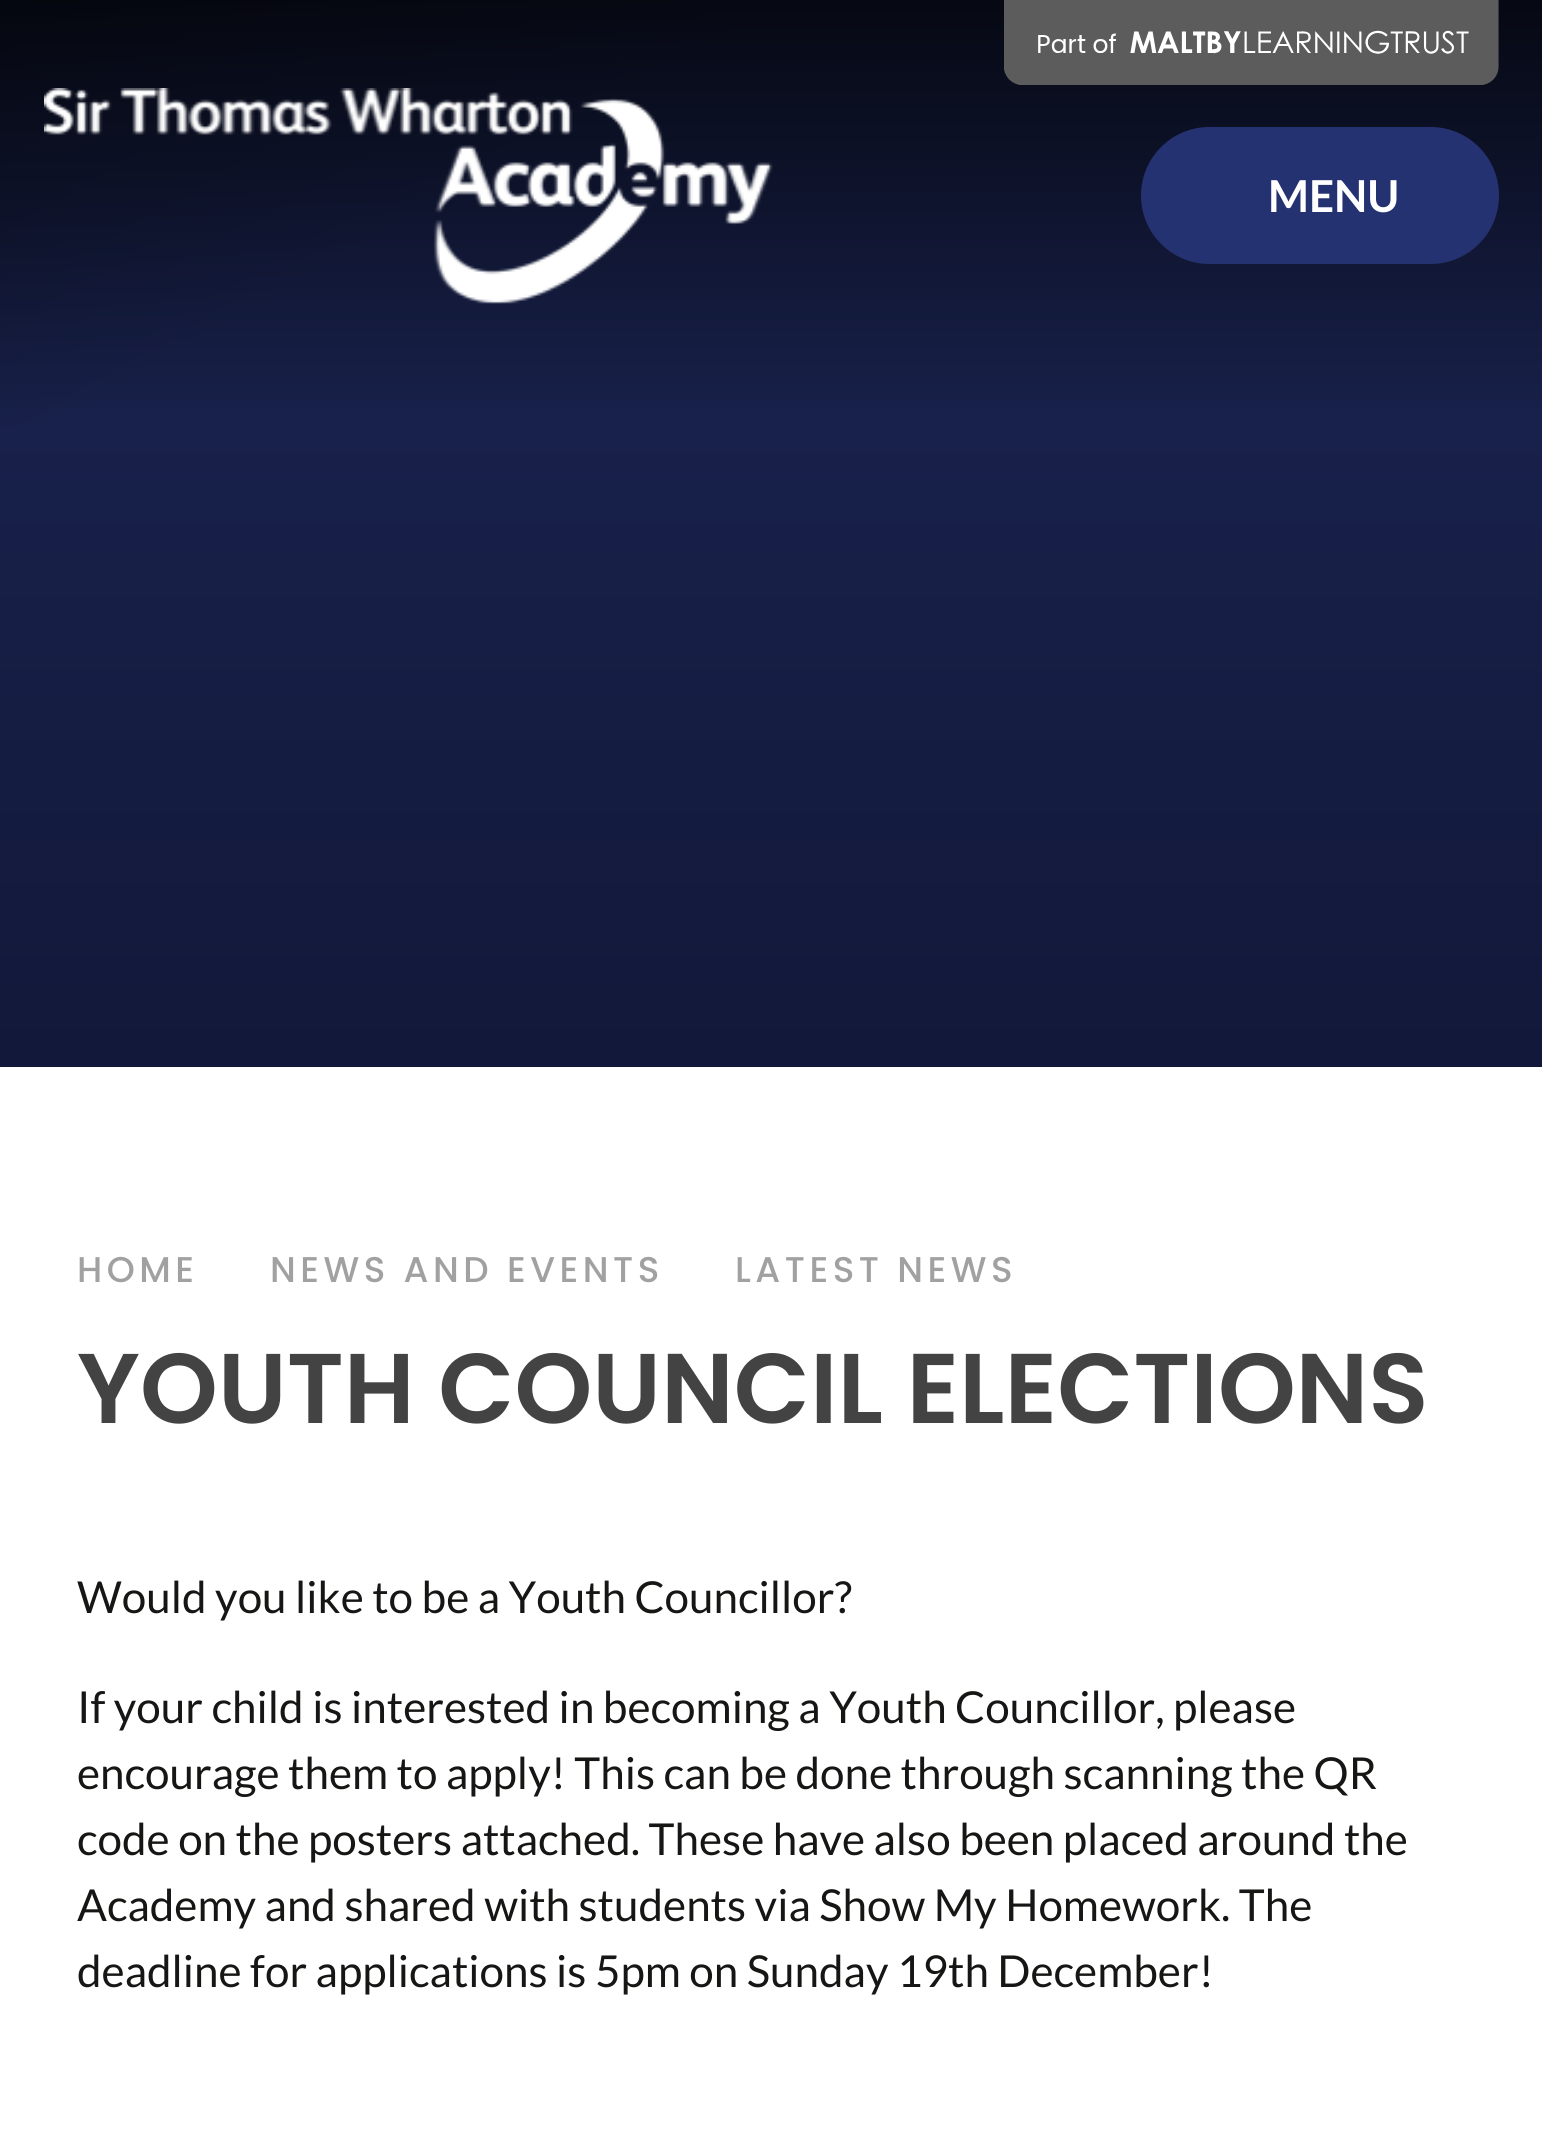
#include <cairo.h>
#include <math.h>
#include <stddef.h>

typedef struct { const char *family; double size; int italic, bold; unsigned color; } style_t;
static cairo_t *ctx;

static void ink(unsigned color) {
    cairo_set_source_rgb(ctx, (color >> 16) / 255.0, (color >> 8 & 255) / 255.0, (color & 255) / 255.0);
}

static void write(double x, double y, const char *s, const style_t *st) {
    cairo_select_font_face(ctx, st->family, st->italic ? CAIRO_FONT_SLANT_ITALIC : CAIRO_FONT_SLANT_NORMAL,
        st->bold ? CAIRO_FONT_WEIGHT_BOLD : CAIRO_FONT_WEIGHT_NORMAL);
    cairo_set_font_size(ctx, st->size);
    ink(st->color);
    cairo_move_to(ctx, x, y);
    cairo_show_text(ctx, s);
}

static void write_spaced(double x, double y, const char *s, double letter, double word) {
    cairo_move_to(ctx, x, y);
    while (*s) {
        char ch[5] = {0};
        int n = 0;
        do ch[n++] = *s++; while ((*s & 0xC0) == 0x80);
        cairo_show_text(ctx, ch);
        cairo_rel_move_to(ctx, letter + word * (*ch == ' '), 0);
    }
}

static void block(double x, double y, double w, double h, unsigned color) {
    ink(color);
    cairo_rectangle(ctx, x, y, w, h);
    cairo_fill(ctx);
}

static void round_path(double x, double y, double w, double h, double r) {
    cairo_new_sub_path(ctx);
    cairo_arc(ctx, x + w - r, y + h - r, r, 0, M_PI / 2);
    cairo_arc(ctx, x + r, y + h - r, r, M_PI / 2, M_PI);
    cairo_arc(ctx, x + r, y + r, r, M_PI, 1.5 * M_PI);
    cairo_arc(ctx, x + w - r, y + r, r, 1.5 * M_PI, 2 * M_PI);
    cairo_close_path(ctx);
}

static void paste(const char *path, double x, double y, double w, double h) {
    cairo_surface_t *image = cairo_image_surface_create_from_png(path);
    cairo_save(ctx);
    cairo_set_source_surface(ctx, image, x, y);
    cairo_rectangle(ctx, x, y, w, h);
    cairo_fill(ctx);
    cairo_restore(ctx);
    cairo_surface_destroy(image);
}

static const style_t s1 = {"Lato", 44, 0, 1, 0xffffff};
static const style_t s2 = {"Poppins SemiBold", 99, 0, 0, 0x434343};
static const style_t s3 = {"Lato", 44, 0, 0, 0x161615};

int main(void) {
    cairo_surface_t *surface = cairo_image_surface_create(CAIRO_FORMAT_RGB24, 1542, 2133);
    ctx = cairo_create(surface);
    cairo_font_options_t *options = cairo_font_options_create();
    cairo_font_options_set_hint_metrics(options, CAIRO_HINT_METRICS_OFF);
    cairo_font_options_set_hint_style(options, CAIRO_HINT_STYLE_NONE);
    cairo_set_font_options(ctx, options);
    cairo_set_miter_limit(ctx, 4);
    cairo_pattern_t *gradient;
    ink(0xffffff);
    cairo_paint(ctx);
    block(64, 0, 1478, 426, 0x18214b);
    gradient = cairo_pattern_create_linear(169, -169, 401, 231);
    cairo_pattern_add_color_stop_rgba(gradient, 0, 0.071, 0.098, 0.22, 1);
    cairo_pattern_add_color_stop_rgba(gradient, 1, 0.094, 0.129, 0.294, 1);
    cairo_set_source(ctx, gradient);
    cairo_pattern_destroy(gradient);
    cairo_new_path(ctx);
    cairo_move_to(ctx, -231, 62);
    cairo_line_to(ctx, 570, -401);
    cairo_line_to(ctx, 802, 0);
    cairo_line_to(ctx, 0, 463);
    cairo_close_path(ctx);
    cairo_fill(ctx);
    gradient = cairo_pattern_create_linear(771, 0, 771, 426);
    cairo_pattern_add_color_stop_rgba(gradient, 0, 0, 0, 0, 0.75);
    cairo_pattern_add_color_stop_rgba(gradient, 1, 0, 0, 0, 0);
    cairo_set_source(ctx, gradient);
    cairo_pattern_destroy(gradient);
    cairo_rectangle(ctx, 0, 0, 1542, 407);
    cairo_fill(ctx);
    gradient = cairo_pattern_create_linear(771, 1067, 771, 426);
    cairo_pattern_add_color_stop_rgba(gradient, 0, 0.071, 0.094, 0.224, 1);
    cairo_pattern_add_color_stop_rgba(gradient, 1, 0.094, 0.129, 0.294, 1);
    cairo_set_source(ctx, gradient);
    cairo_pattern_destroy(gradient);
    cairo_rectangle(ctx, 0, 426, 1542, 641);
    cairo_fill(ctx);
    paste("pic1.png", 1004, 0, 495, 85);
    paste("pic2.png", 44, 88, 729, 216);
    ink(0x253271);
    round_path(1141, 127, 358, 137, 68.5);
    cairo_fill(ctx);
    write(1268, 212, "MENU", &s1);
    cairo_select_font_face(ctx, "Poppins Medium", CAIRO_FONT_SLANT_NORMAL, CAIRO_FONT_WEIGHT_NORMAL);
    cairo_set_font_size(ctx, 35.75);
    ink(0xa1a1a1);
    write_spaced(77, 1282, "HOME", 4.5, 0);
    write_spaced(270, 1282, "NEWS AND EVENTS", 4.5, 0);
    write_spaced(735, 1282, "LATEST NEWS", 4.5, 0);
    write(77, 1423, "YOUTH COUNCIL ELECTIONS", &s2);
    write(77, 1613, "Would you like to be a Youth Councillor?", &s3);
    write(77, 1723, "If your child is interested in becoming a Youth Councillor, please", &s3);
    write(77, 1789, "encourage them to apply! This can be done through scanning the QR", &s3);
    write(77, 1855, "code on the posters attached. These have also been placed around the", &s3);
    write(77, 1921, "Academy and shared with students via Show My Homework. The", &s3);
    write(77, 1987, "deadline for applications is 5pm on Sunday 19th December!", &s3);
    cairo_surface_write_to_png(surface, "screenshot.png");
    cairo_font_options_destroy(options);
    cairo_destroy(ctx);
    cairo_surface_destroy(surface);
    return 0;
}
